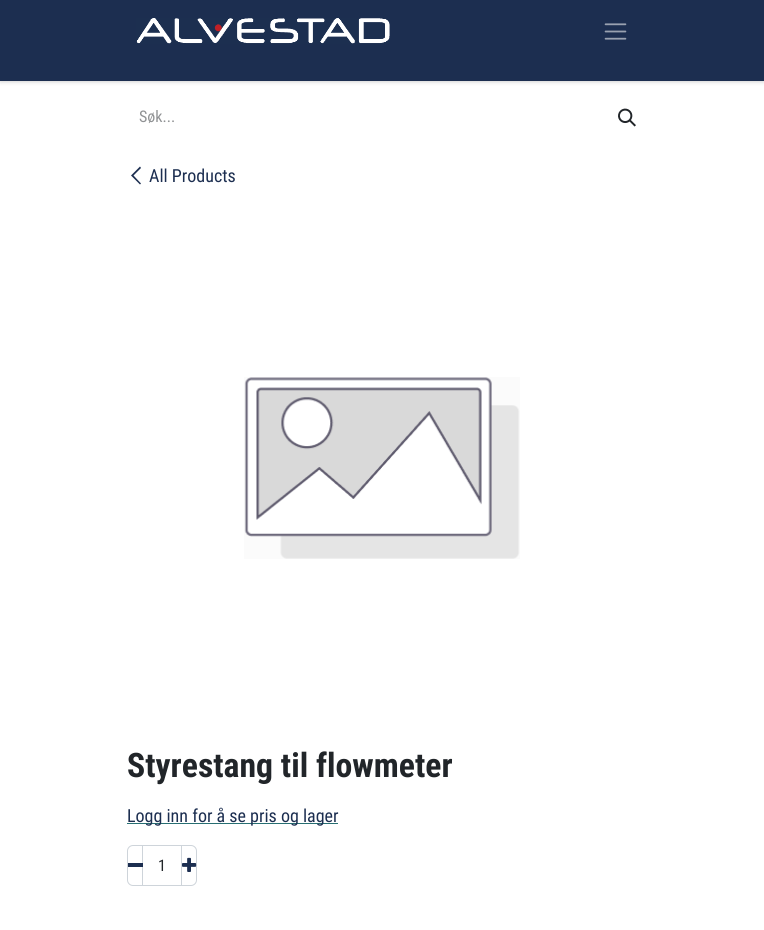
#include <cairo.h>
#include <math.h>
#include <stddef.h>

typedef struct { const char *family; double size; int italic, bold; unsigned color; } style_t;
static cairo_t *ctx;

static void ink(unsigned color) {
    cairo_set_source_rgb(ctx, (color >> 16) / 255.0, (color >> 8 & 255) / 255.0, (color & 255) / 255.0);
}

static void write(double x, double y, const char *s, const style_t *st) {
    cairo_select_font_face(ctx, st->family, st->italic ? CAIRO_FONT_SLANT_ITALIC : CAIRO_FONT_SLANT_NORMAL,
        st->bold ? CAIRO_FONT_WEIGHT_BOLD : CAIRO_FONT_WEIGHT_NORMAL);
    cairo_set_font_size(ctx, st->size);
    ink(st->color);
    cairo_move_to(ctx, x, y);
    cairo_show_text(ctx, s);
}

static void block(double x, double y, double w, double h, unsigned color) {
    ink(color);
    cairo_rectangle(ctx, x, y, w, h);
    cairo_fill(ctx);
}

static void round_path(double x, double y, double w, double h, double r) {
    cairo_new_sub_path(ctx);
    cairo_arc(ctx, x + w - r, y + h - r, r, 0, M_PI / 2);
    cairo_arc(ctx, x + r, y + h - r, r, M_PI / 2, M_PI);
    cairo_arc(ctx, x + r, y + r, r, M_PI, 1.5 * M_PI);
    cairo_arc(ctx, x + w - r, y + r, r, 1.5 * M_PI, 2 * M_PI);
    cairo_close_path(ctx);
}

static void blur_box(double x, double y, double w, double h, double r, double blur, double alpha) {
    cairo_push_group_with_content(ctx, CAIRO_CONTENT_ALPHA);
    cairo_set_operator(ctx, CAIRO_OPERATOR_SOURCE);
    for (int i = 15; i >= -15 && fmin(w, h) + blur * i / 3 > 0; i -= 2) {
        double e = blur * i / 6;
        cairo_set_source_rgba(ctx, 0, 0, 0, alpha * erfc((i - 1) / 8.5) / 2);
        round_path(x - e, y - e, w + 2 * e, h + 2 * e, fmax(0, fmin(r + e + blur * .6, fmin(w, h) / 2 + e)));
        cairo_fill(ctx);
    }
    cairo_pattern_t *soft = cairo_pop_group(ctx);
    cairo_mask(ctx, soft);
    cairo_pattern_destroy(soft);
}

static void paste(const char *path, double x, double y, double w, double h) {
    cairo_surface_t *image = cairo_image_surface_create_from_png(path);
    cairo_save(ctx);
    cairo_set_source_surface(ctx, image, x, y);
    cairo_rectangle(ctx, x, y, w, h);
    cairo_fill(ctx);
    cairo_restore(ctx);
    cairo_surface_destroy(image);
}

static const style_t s1 = {"Roboto Condensed", 16, 0, 0, 0x909294};
static const style_t s2 = {"Roboto Condensed", 18, 0, 0, 0x1c2e50};
static const style_t s3 = {"Roboto Condensed", 33.75, 0, 1, 0x212529};
static const style_t s4 = {"Roboto Condensed", 16, 0, 0, 0x212529};

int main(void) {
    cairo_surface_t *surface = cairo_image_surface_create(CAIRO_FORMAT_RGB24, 764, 930);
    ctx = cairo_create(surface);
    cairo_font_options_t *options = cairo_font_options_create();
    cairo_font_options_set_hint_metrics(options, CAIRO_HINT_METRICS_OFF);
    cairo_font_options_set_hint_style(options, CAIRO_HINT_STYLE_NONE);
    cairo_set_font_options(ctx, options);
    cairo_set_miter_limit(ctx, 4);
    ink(0xffffff);
    cairo_paint(ctx);
    ink(0x000000);
    blur_box(0, 0, 764, 81, 0, 2.5, 0.25);
    block(0, 0, 764, 81, 0x1c2e50);
    paste("pic1.png", 136, 18, 254, 26);
    paste("pic2.png", 604, 23, 23, 17);
    write(139, 122, "Søk...", &s1);
    paste("pic3.png", 618, 108, 18, 19);
    ink(0x1c2e50);
    cairo_new_path(ctx);
    cairo_move_to(ctx, 131, 175.5);
    cairo_line_to(ctx, 140, 166.5);
    cairo_line_to(ctx, 141, 168);
    cairo_line_to(ctx, 133.5, 175.5);
    cairo_line_to(ctx, 141, 183.5);
    cairo_line_to(ctx, 140, 184.5);
    cairo_close_path(ctx);
    cairo_fill(ctx);
    write(149, 182, "All Products", &s2);
    paste("pic4.png", 244, 377, 276, 182);
    write(127, 777, "Styrestang til flowmeter", &s3);
    block(127, 823, 211, 1, 0x276e72);
    write(127, 822, "Logg inn for å se pris og lager", &s2);
    cairo_rectangle(ctx, 142.5, 845.5, 39, 40);
    ink(0xced4da);
    cairo_set_line_width(ctx, 1);
    cairo_stroke(ctx);
    cairo_new_path(ctx);
    cairo_move_to(ctx, 133, 845.5);
    cairo_line_to(ctx, 142.5, 845.5);
    cairo_line_to(ctx, 142.5, 885.5);
    cairo_line_to(ctx, 133, 885.5);
    cairo_curve_to(ctx, 130, 885.5, 127.5, 883, 127.5, 880);
    cairo_line_to(ctx, 127.5, 851);
    cairo_curve_to(ctx, 127.5, 848, 130, 845.5, 133, 845.5);
    cairo_close_path(ctx);
    cairo_stroke(ctx);
    block(128, 863, 15, 4, 0x1c2e50);
    write(158, 871, "1", &s4);
    cairo_new_path(ctx);
    cairo_move_to(ctx, 181.5, 845.5);
    cairo_line_to(ctx, 191, 845.5);
    cairo_curve_to(ctx, 194, 845.5, 196.5, 848, 196.5, 851);
    cairo_line_to(ctx, 196.5, 880);
    cairo_curve_to(ctx, 196.5, 883, 194, 885.5, 191, 885.5);
    cairo_line_to(ctx, 181.5, 885.5);
    cairo_close_path(ctx);
    ink(0xced4da);
    cairo_stroke(ctx);
    paste("pic5.png", 182, 857, 15, 15);
    cairo_surface_write_to_png(surface, "screenshot.png");
    cairo_font_options_destroy(options);
    cairo_destroy(ctx);
    cairo_surface_destroy(surface);
    return 0;
}
